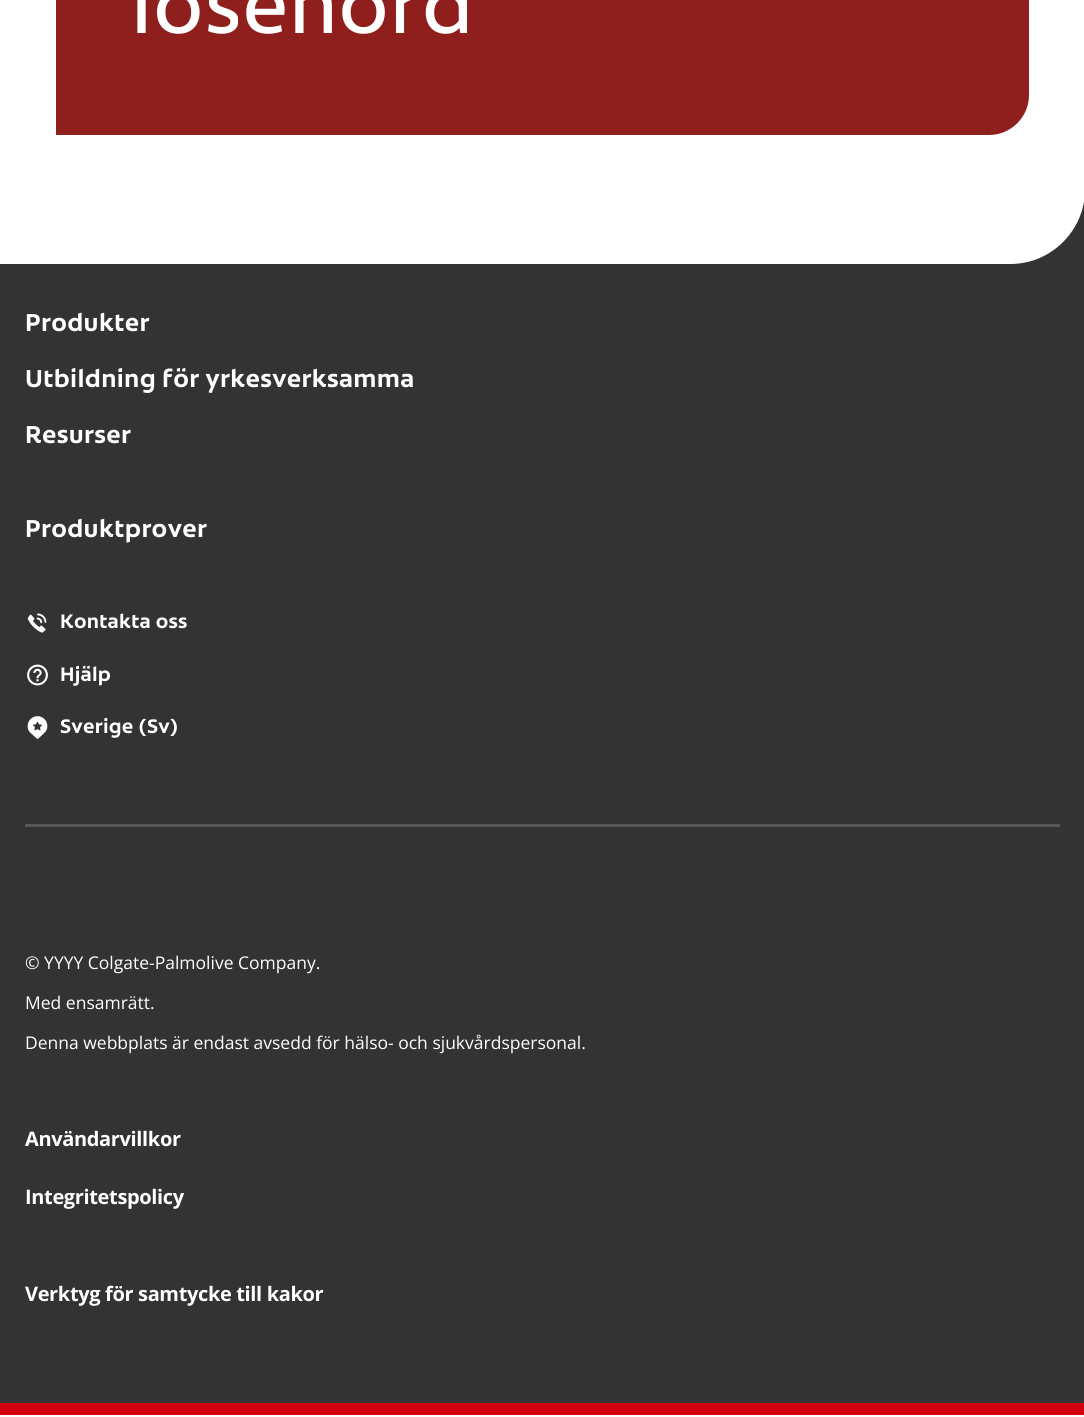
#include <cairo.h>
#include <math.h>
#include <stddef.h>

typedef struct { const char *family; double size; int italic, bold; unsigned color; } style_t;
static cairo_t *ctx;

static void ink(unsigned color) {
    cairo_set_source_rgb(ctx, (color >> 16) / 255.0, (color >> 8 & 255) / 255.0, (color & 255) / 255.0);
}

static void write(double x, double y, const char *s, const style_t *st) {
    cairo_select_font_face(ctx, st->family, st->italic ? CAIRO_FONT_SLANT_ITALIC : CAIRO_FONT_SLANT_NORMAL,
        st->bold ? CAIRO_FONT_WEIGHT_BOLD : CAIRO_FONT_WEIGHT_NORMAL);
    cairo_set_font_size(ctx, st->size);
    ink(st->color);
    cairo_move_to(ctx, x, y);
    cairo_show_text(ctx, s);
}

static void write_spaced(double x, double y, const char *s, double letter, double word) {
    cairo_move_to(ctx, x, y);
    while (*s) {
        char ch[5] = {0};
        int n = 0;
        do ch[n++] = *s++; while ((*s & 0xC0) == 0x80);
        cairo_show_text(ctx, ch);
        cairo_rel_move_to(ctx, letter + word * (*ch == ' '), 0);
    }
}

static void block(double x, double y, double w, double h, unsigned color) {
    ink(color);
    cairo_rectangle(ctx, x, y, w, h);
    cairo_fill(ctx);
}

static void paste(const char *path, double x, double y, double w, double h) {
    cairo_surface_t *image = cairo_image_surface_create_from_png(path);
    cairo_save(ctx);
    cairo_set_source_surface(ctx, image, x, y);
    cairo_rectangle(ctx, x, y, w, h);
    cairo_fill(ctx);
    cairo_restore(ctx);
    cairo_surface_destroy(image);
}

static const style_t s1 = {"Open Sans", 17.5, 0, 0, 0xffffff};

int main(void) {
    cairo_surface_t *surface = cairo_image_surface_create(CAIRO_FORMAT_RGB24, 1084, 1417);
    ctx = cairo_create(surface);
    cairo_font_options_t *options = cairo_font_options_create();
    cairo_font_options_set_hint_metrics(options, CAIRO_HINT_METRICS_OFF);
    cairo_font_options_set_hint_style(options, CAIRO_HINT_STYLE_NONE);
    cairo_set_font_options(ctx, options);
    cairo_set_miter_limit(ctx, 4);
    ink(0xffffff);
    cairo_paint(ctx);
    ink(0x8f1f1d);
    cairo_new_path(ctx);
    cairo_move_to(ctx, 56, -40);
    cairo_line_to(ctx, 1029, -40);
    cairo_line_to(ctx, 1029, 95);
    cairo_curve_to(ctx, 1029, 117, 1011, 135, 989, 135);
    cairo_line_to(ctx, 56, 135);
    cairo_close_path(ctx);
    cairo_fill(ctx);
    cairo_select_font_face(ctx, "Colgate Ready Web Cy", CAIRO_FONT_SLANT_NORMAL, CAIRO_FONT_WEIGHT_NORMAL);
    cairo_set_font_size(ctx, 80);
    ink(0xffffff);
    write_spaced(131, 33, "lösenord", -1, 0);
    block(0, 264, 1084, 1139, 0x333333);
    block(0, 1403, 1084, 12, 0xd2010d);
    cairo_select_font_face(ctx, "Colgate Ready Web Cy", CAIRO_FONT_SLANT_NORMAL, CAIRO_FONT_WEIGHT_BOLD);
    cairo_set_font_size(ctx, 25);
    ink(0xffffff);
    write_spaced(25, 331, "Produkter", -0.4, 0);
    write_spaced(25, 387, "Utbildning för yrkesverksamma", -0.4, 0);
    write_spaced(25, 443, "Resurser", -0.4, 0);
    write_spaced(25, 537, "Produktprover", -0.4, 0);
    paste("pic1.png", 27, 613, 20, 20);
    cairo_set_font_size(ctx, 20);
    write_spaced(60, 628, "Kontakta oss", -0.35, 0);
    paste("pic2.png", 27, 664, 21, 22);
    write_spaced(60, 681, "Hjälp", -0.35, 0);
    paste("pic3.png", 27, 716, 21, 24);
    write_spaced(60, 733, "Sverige (Sv)", -0.35, 0);
    cairo_save(ctx);
    cairo_rectangle(ctx, 1010, 189, 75, 75);
    cairo_clip(ctx);
    cairo_arc(ctx, 1010, 189, 262.5, 0, 2 * M_PI);
    ink(0x333333);
    cairo_set_line_width(ctx, 375);
    cairo_stroke(ctx);
    cairo_restore(ctx);
    block(25, 824, 1035, 3, 0x595655);
    write(25, 969, "© YYYY Colgate-Palmolive Company.", &s1);
    write(25, 1009, "Med ensamrätt.", &s1);
    write(25, 1049, "Denna webbplats är endast avsedd för hälso- och sjukvårdspersonal.", &s1);
    cairo_select_font_face(ctx, "Open Sans", CAIRO_FONT_SLANT_NORMAL, CAIRO_FONT_WEIGHT_BOLD);
    cairo_set_font_size(ctx, 20);
    write_spaced(25, 1146, "Användarvillkor", -0.35, 0);
    write_spaced(25, 1204, "Integritetspolicy", -0.35, 0);
    write_spaced(25, 1301, "Verktyg för samtycke till kakor", -0.35, 0);
    cairo_surface_write_to_png(surface, "screenshot.png");
    cairo_font_options_destroy(options);
    cairo_destroy(ctx);
    cairo_surface_destroy(surface);
    return 0;
}
